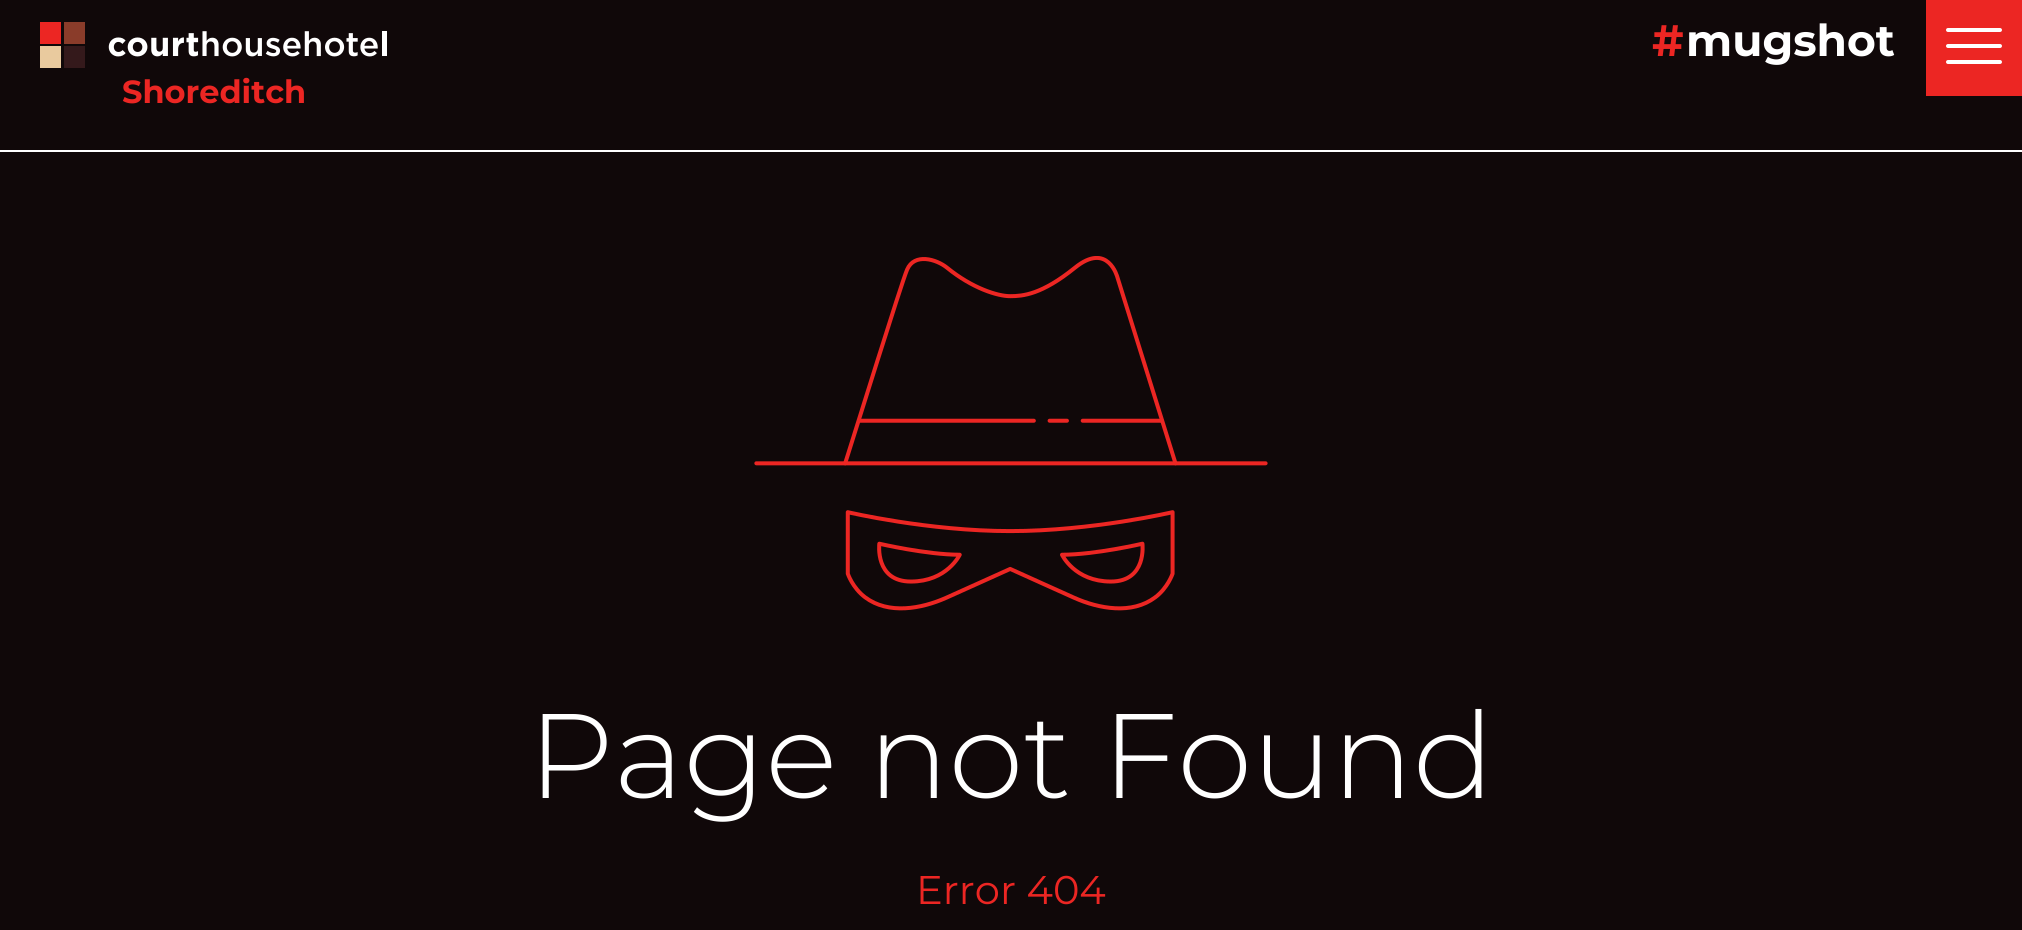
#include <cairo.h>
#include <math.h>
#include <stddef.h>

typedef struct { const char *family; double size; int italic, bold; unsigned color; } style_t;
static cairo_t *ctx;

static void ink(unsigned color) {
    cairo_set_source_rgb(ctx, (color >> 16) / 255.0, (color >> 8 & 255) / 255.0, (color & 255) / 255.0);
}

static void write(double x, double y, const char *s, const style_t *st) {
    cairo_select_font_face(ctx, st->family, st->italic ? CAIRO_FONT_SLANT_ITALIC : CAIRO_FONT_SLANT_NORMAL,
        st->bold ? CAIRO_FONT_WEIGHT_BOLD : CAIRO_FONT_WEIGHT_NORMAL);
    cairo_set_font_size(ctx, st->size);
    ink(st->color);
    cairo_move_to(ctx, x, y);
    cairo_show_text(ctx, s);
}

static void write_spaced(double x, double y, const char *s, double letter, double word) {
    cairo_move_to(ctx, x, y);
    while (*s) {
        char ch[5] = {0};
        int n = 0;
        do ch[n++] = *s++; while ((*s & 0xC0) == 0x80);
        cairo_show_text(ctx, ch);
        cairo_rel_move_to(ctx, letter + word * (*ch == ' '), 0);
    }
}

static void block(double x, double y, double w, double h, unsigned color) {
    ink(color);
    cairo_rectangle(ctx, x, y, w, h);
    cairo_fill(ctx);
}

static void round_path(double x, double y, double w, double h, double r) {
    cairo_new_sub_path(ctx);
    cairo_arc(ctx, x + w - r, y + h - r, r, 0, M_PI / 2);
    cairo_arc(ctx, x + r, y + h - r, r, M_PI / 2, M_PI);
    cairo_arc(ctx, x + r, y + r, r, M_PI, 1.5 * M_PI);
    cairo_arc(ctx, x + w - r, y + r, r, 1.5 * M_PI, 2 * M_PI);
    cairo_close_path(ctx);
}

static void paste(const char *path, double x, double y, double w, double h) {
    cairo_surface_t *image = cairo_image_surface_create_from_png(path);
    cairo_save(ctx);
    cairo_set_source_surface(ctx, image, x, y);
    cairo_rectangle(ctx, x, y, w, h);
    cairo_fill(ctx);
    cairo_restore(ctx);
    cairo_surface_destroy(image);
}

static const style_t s1 = {"Montserrat", 44, 0, 1, 0xffffff};
static const style_t s2 = {"Montserrat", 32, 0, 1, 0xec2623};
static const style_t s3 = {"Montserrat Light", 120, 0, 0, 0xffffff};
static const style_t s4 = {"Montserrat", 40, 0, 0, 0xec2623};

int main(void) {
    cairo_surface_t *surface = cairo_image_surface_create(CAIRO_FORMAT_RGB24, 2022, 930);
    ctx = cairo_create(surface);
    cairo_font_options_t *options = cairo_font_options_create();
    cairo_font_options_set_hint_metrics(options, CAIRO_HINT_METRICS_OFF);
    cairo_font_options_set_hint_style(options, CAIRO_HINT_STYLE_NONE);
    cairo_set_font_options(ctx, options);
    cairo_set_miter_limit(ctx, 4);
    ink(0x100809);
    cairo_paint(ctx);
    block(0, 150, 2022, 2, 0xffffff);
    cairo_select_font_face(ctx, "Montserrat", CAIRO_FONT_SLANT_NORMAL, CAIRO_FONT_WEIGHT_BOLD);
    cairo_set_font_size(ctx, 44);
    ink(0xec2623);
    write_spaced(1652, 56, "#", 2, 0);
    write(1686, 56, "mugshot", &s1);
    block(1926, 0, 96, 96, 0xec2623);
    ink(0xffffff);
    round_path(1946, 44, 56, 4, 2);
    cairo_fill(ctx);
    round_path(1946, 28, 56, 4, 2);
    cairo_fill(ctx);
    round_path(1946, 60, 56, 4, 2);
    cairo_fill(ctx);
    paste("pic1.png", 40, 22, 347, 46);
    write(122, 103, "Shoreditch", &s2);
    paste("pic2.png", 754, 256, 514, 355);
    write(528, 798, "Page not Found", &s3);
    write(916, 904, "Error 404", &s4);
    cairo_surface_write_to_png(surface, "screenshot.png");
    cairo_font_options_destroy(options);
    cairo_destroy(ctx);
    cairo_surface_destroy(surface);
    return 0;
}
